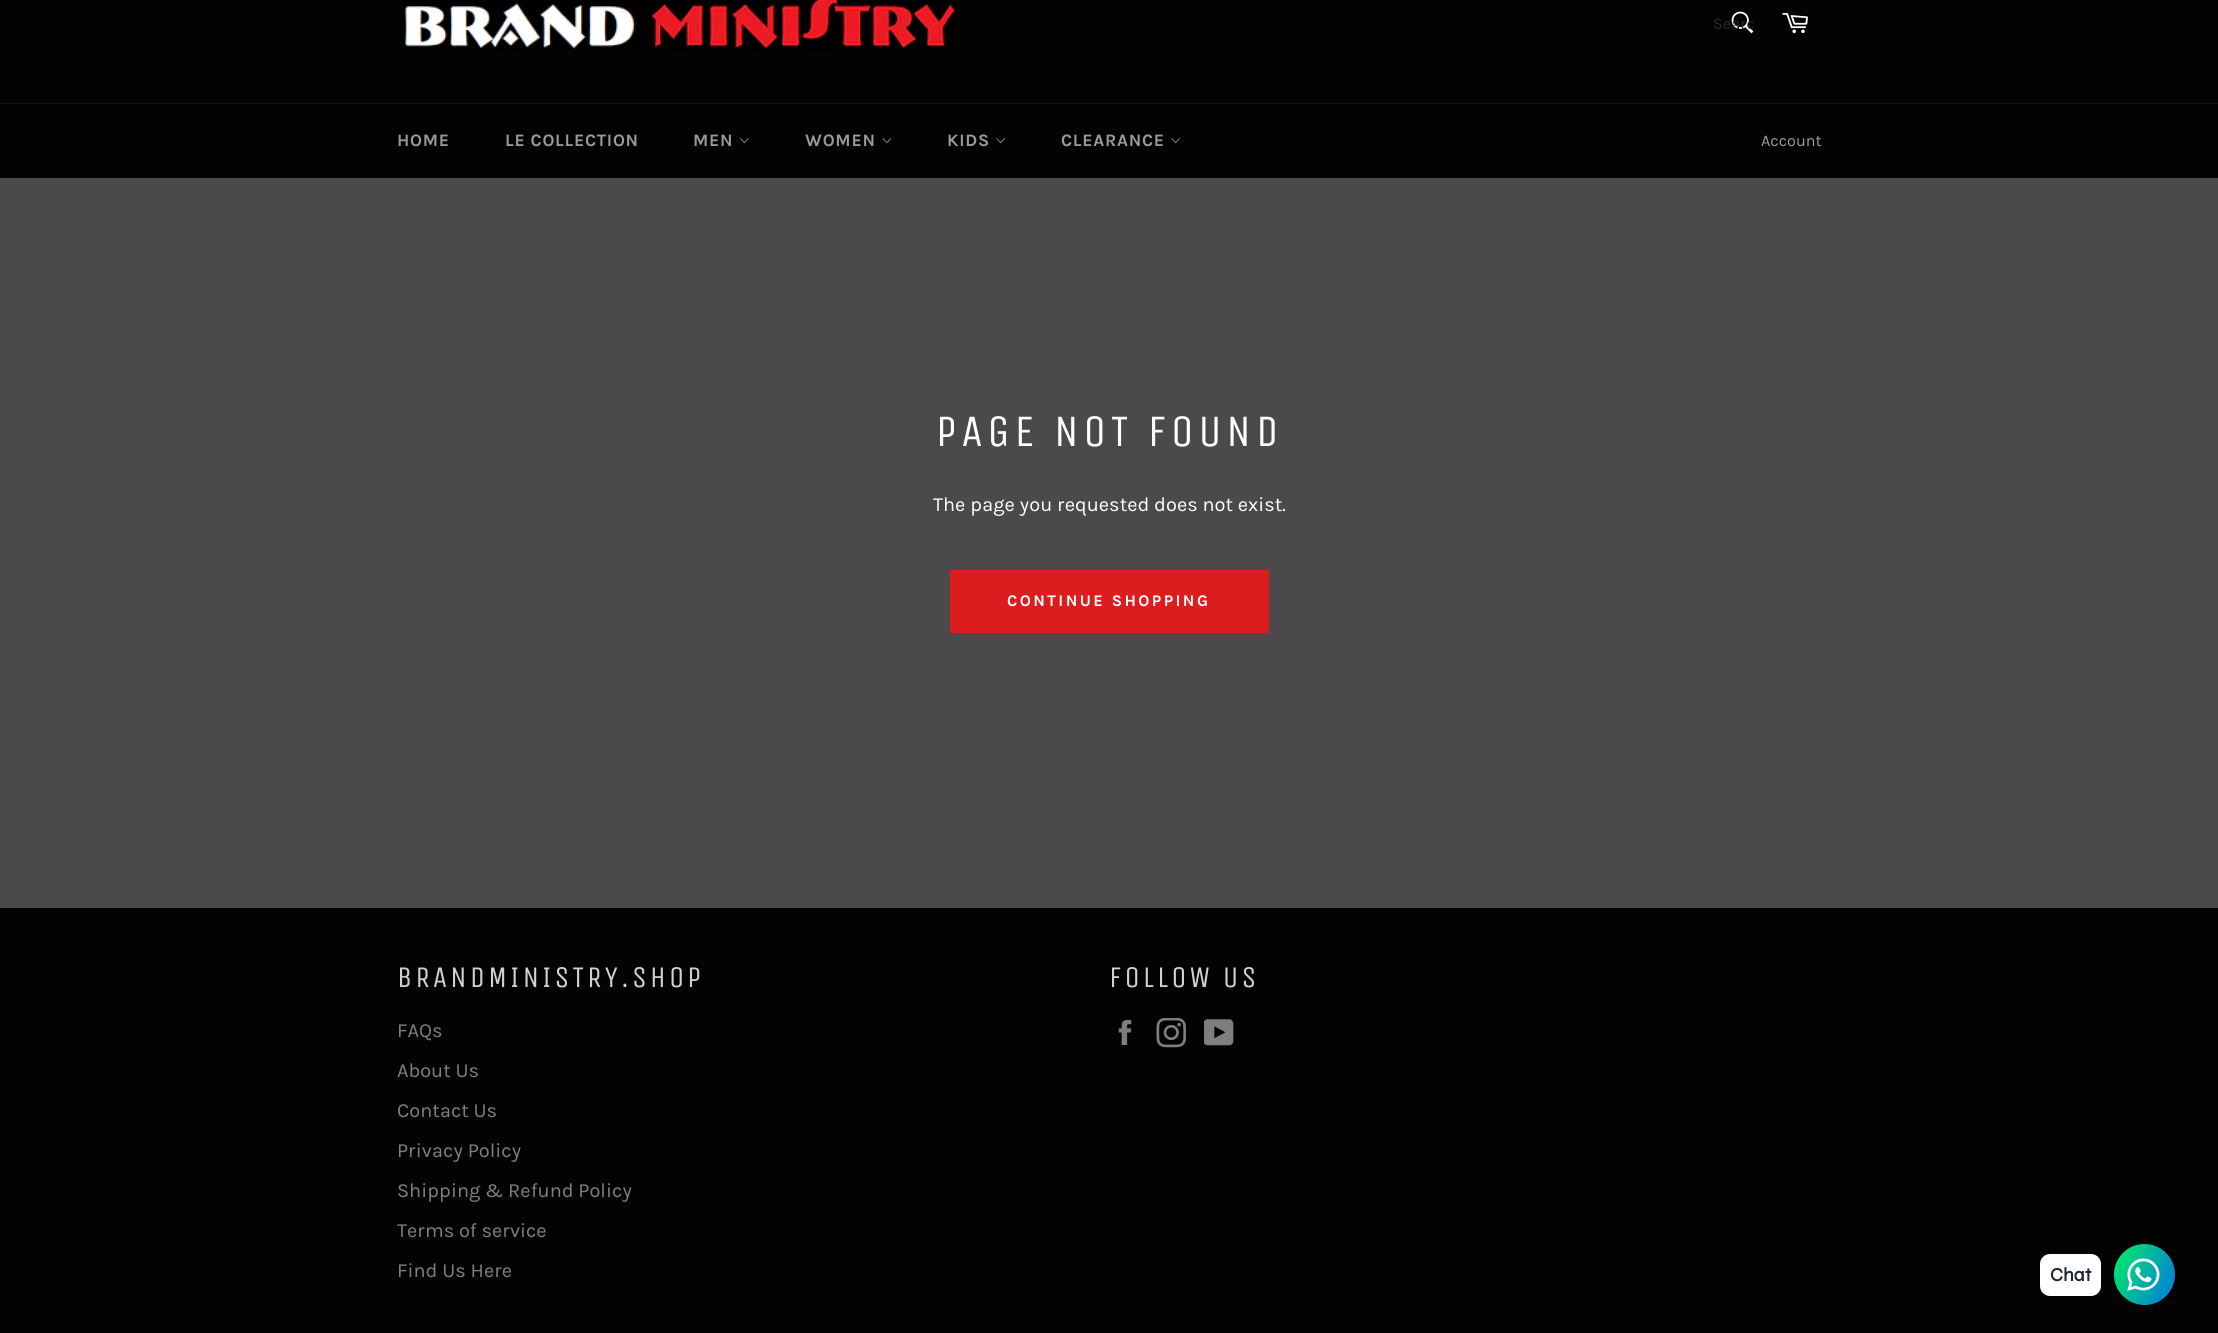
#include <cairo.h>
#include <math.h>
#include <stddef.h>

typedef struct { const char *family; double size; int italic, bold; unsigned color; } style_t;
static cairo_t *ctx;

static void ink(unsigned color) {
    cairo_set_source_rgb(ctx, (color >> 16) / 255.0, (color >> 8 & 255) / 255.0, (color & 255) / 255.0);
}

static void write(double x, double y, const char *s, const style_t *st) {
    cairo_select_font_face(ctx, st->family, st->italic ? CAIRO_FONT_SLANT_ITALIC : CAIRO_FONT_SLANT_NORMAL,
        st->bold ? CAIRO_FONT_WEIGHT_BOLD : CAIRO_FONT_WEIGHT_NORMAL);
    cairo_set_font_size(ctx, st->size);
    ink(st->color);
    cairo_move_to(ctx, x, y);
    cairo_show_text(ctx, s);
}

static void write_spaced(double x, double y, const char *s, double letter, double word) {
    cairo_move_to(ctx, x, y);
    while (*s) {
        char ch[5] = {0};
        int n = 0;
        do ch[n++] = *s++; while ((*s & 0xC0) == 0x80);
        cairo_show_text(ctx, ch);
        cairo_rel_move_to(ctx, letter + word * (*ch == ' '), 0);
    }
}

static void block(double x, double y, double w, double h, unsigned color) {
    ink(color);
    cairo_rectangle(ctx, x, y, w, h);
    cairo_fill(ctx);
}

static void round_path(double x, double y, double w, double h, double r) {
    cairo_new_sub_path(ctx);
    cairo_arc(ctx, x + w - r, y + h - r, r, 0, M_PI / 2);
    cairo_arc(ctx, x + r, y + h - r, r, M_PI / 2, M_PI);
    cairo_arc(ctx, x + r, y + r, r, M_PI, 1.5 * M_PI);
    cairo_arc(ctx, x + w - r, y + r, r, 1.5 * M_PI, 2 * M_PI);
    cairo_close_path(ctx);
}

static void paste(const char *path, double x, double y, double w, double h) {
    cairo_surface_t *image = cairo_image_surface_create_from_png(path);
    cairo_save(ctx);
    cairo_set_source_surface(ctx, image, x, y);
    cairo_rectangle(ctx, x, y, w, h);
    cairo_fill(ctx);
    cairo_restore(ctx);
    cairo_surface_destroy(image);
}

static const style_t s1 = {"Karla", 16.25, 0, 0, 0x282828};
static const style_t s2 = {"Karla", 16.25, 0, 0, 0x9a9a9a};
static const style_t s3 = {"Karla", 20, 0, 0, 0xffffff};
static const style_t s4 = {"Karla", 20, 0, 0, 0x7f7f7f};
static const style_t s5 = {"Syne", 19, 0, 1, 0x1e2433};

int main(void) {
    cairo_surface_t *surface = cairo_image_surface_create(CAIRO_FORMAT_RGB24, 2218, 1333);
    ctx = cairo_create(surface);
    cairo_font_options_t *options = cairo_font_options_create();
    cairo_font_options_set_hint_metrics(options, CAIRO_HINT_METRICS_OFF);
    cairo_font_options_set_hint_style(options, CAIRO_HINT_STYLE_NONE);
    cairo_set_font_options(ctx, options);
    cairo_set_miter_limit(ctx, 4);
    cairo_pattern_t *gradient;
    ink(0x4b4949);
    cairo_paint(ctx);
    block(0, 0, 2218, 103, 0x030303);
    paste("pic1.png", 404, 0, 552, 50);
    paste("pic2.png", 1731, 11, 23, 23);
    cairo_save(ctx);
    cairo_rectangle(ctx, 1713, 15, 40, 19);
    cairo_clip(ctx);
    write(1713, 29, "Searc", &s1);
    cairo_restore(ctx);
    paste("pic3.png", 1782, 13, 26, 21);
    block(0, 104, 2218, 74, 0x030303);
    block(0, 103, 2218, 1, 0x101010);
    cairo_select_font_face(ctx, "Karla", CAIRO_FONT_SLANT_NORMAL, CAIRO_FONT_WEIGHT_BOLD);
    cairo_set_font_size(ctx, 17.5);
    ink(0x9a9a9a);
    write_spaced(397, 146, "HOME", 0.75, 0);
    write_spaced(505, 146, "LE COLLECTION", 0.75, 0);
    write_spaced(693, 146, "MEN", 0.75, 0);
    paste("pic4.png", 740, 138, 9, 6);
    write_spaced(805, 146, "WOMEN", 0.75, 0);
    paste("pic5.png", 882, 138, 10, 6);
    write_spaced(947, 146, "KIDS", 0.75, 0);
    paste("pic6.png", 996, 138, 9, 6);
    write_spaced(1061, 146, "CLEARANCE", 0.75, 0);
    paste("pic6.png", 1171, 138, 9, 6);
    write(1761, 146, "Account", &s2);
    cairo_select_font_face(ctx, "Unica One", CAIRO_FONT_SLANT_NORMAL, CAIRO_FONT_WEIGHT_NORMAL);
    cairo_set_font_size(ctx, 45);
    ink(0xffffff);
    write_spaced(936, 446, "PAGE NOT FOUND", 4.5, 0);
    write(933, 511, "The page you requested does not exist.", &s3);
    block(950, 570, 319, 63, 0xdd1d1d);
    cairo_select_font_face(ctx, "Karla", CAIRO_FONT_SLANT_NORMAL, CAIRO_FONT_WEIGHT_BOLD);
    cairo_set_font_size(ctx, 16.25);
    ink(0xffffff);
    write_spaced(1007, 606, "CONTINUE SHOPPING", 2.4, 0);
    block(0, 908, 2218, 425, 0x030303);
    cairo_select_font_face(ctx, "Unica One", CAIRO_FONT_SLANT_NORMAL, CAIRO_FONT_WEIGHT_NORMAL);
    cairo_set_font_size(ctx, 30);
    ink(0xd1d1d1);
    write_spaced(397, 987, "BRANDMINISTRY.SHOP", 3, 0);
    write(397, 1037, "FAQs", &s4);
    write(397, 1077, "About Us", &s4);
    write(397, 1117, "Contact Us", &s4);
    write(397, 1157, "Privacy Policy", &s4);
    write(397, 1197, "Shipping & Refund Policy", &s4);
    write(397, 1237, "Terms of service", &s4);
    write(397, 1277, "Find Us Here", &s4);
    cairo_select_font_face(ctx, "Unica One", CAIRO_FONT_SLANT_NORMAL, CAIRO_FONT_WEIGHT_NORMAL);
    cairo_set_font_size(ctx, 30);
    ink(0xd1d1d1);
    write_spaced(1109, 987, "FOLLOW US", 3, 0);
    paste("pic7.png", 1118, 1020, 14, 25);
    paste("pic8.png", 1156, 1018, 30, 30);
    paste("pic9.png", 1204, 1019, 30, 27);
    gradient = cairo_pattern_create_linear(2107, 1257, 2181, 1292);
    cairo_pattern_add_color_stop_rgba(gradient, 0, 0, 0.949, 0.376, 1);
    cairo_pattern_add_color_stop_rgba(gradient, 1, 0.02, 0.459, 0.902, 1);
    cairo_set_source(ctx, gradient);
    cairo_pattern_destroy(gradient);
    cairo_arc(ctx, 2144.5, 1274.5, 30.5, 0, 2 * M_PI);
    cairo_fill(ctx);
    ink(0xffffff);
    round_path(2040, 1254, 61, 42, 10);
    cairo_fill(ctx);
    write(2050, 1281, "Chat", &s5);
    paste("pic10.png", 2127, 1258, 33, 33);
    cairo_surface_write_to_png(surface, "screenshot.png");
    cairo_font_options_destroy(options);
    cairo_destroy(ctx);
    cairo_surface_destroy(surface);
    return 0;
}
